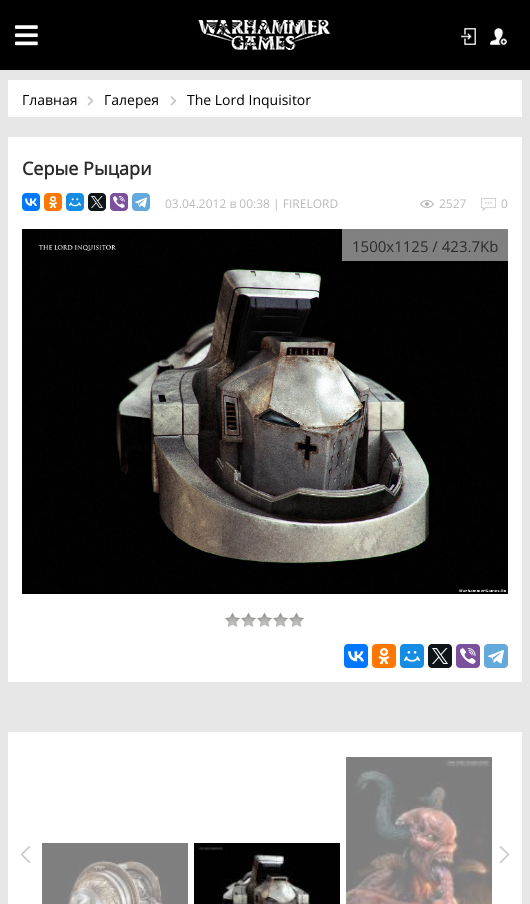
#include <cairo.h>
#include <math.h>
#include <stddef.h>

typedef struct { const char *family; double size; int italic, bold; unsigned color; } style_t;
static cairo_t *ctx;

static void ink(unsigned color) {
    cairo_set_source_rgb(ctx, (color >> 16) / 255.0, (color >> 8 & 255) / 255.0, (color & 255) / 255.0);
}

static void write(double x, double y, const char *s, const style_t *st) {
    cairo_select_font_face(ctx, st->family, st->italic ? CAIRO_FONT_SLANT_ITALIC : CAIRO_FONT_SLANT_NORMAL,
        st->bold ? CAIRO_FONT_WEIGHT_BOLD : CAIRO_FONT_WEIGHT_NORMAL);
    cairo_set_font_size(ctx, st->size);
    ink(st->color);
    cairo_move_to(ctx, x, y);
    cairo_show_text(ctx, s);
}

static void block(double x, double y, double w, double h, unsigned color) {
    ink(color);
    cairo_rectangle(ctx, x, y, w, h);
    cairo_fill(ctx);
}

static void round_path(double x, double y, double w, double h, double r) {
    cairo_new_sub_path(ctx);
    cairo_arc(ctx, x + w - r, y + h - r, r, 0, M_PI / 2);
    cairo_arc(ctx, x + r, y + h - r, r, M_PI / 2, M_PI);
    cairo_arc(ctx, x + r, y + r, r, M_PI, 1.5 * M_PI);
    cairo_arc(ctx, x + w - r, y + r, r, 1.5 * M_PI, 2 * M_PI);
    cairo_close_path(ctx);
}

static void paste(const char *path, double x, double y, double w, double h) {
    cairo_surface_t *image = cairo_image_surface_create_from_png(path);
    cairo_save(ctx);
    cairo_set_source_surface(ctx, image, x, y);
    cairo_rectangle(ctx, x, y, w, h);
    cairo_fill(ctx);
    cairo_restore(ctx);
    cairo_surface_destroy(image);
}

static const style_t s1 = {"Open Sans", 14, 0, 0, 0x000000};
static const style_t s2 = {"Open Sans", 18, 0, 1, 0x2b2b2b};
static const style_t s3 = {"Open Sans", 12, 0, 0, 0xb9b9b9};
static const style_t s4 = {"Open Sans", 15, 0, 0, 0x2b2b2b};

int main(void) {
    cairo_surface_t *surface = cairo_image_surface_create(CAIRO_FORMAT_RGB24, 530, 904);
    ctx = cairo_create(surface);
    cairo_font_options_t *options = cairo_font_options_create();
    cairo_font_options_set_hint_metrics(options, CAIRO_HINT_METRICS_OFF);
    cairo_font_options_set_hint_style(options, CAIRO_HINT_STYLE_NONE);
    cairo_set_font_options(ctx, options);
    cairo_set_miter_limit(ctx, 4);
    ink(0xe7e7e7);
    cairo_paint(ctx);
    block(0, 0, 530, 70, 0x000000);
    paste("pic1.png", 15, 25, 23, 21);
    paste("pic2.png", 198, 20, 133, 30);
    paste("pic3.png", 461, 28, 15, 17);
    paste("pic4.png", 490, 28, 17, 17);
    block(8, 80, 514, 37, 0xffffff);
    write(22, 105, "Главная", &s1);
    paste("pic5.png", 87, 96, 7, 10);
    write(104, 105, "Галерея", &s1);
    paste("pic5.png", 170, 96, 7, 10);
    write(187, 105, "The Lord Inquisitor", &s1);
    block(8, 137, 514, 545, 0xffffff);
    write(22, 175, "Серые Рыцари", &s2);
    ink(0x0077ff);
    round_path(22, 193, 18, 18, 4);
    cairo_fill(ctx);
    paste("pic6.png", 25, 198, 12, 8);
    ink(0xff7700);
    round_path(44, 193, 18, 18, 4);
    cairo_fill(ctx);
    paste("pic7.png", 49, 196, 8, 12);
    ink(0x168de2);
    round_path(66, 193, 18, 18, 4);
    cairo_fill(ctx);
    paste("pic8.png", 69, 198, 12, 9);
    ink(0x0f1419);
    round_path(88, 193, 18, 18, 4);
    cairo_fill(ctx);
    paste("pic9.png", 91, 196, 12, 12);
    ink(0x7b519d);
    round_path(110, 193, 18, 18, 4);
    cairo_fill(ctx);
    paste("pic10.png", 113, 196, 12, 12);
    ink(0x64a9dc);
    round_path(132, 193, 18, 18, 4);
    cairo_fill(ctx);
    paste("pic11.png", 135, 197, 12, 11);
    write(165, 208, "03.04.2012 в 00:38 | FIRELORD", &s3);
    paste("pic12.png", 420, 200, 14, 8);
    write(439, 208, "2527", &s3);
    paste("pic13.png", 481, 198, 15, 13);
    write(501, 208, "0", &s3);
    paste("pic14.png", 22, 229, 486, 365);
    cairo_set_source_rgba(ctx, 1, 1, 1, 0.5);
    cairo_rectangle(ctx, 342, 229, 166, 32);
    cairo_fill(ctx);
    write(352, 252, "1500x1125 / 423.7Kb", &s4);
    paste("pic15.png", 225, 613, 79, 14);
    ink(0x0077ff);
    round_path(344, 644, 24, 24, 4);
    cairo_fill(ctx);
    paste("pic16.png", 348, 651, 16, 11);
    ink(0xff7700);
    round_path(372, 644, 24, 24, 4);
    cairo_fill(ctx);
    paste("pic17.png", 378, 648, 12, 16);
    ink(0x168de2);
    round_path(400, 644, 24, 24, 4);
    cairo_fill(ctx);
    paste("pic18.png", 404, 651, 16, 11);
    ink(0x0f1419);
    round_path(428, 644, 24, 24, 4);
    cairo_fill(ctx);
    paste("pic19.png", 432, 648, 16, 16);
    ink(0x7b519d);
    round_path(456, 644, 24, 24, 4);
    cairo_fill(ctx);
    paste("pic20.png", 460, 648, 16, 16);
    ink(0x64a9dc);
    round_path(484, 644, 24, 24, 4);
    cairo_fill(ctx);
    paste("pic21.png", 488, 650, 16, 14);
    block(8, 732, 514, 172, 0xffffff);
    paste("pic22.png", 20, 846, 11, 17);
    paste("pic23.png", 42, 843, 146, 61);
    paste("pic24.png", 194, 843, 146, 61);
    paste("pic25.png", 346, 757, 146, 147);
    paste("pic26.png", 499, 846, 11, 17);
    cairo_surface_write_to_png(surface, "screenshot.png");
    cairo_font_options_destroy(options);
    cairo_destroy(ctx);
    cairo_surface_destroy(surface);
    return 0;
}
